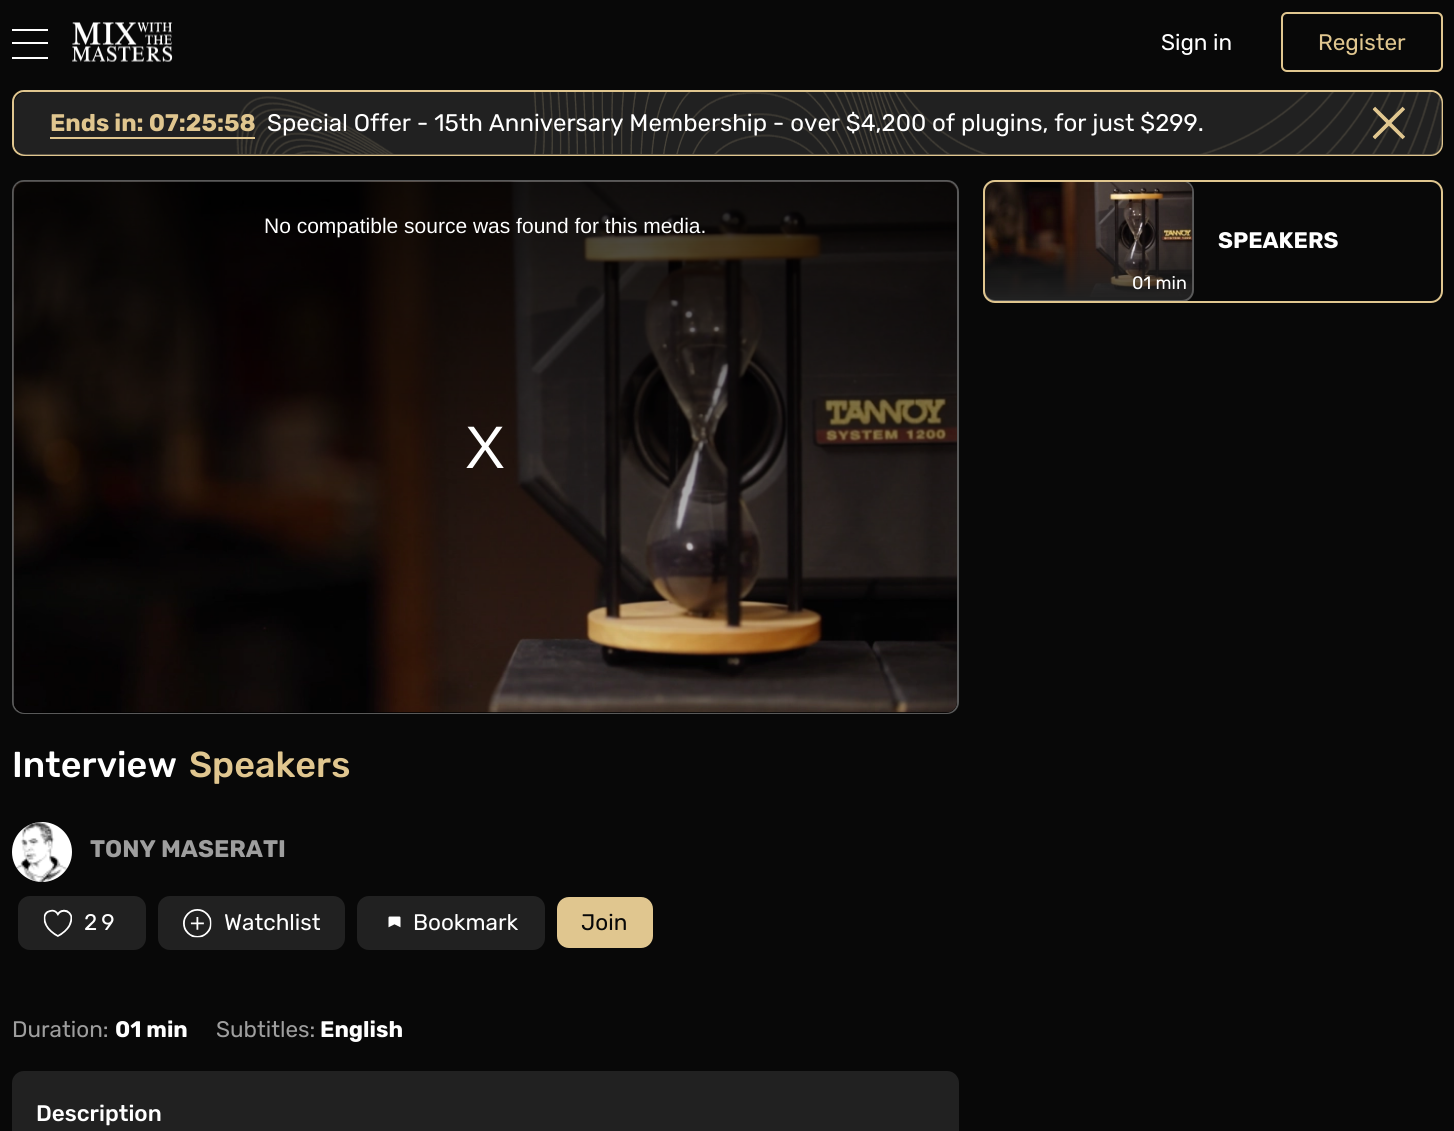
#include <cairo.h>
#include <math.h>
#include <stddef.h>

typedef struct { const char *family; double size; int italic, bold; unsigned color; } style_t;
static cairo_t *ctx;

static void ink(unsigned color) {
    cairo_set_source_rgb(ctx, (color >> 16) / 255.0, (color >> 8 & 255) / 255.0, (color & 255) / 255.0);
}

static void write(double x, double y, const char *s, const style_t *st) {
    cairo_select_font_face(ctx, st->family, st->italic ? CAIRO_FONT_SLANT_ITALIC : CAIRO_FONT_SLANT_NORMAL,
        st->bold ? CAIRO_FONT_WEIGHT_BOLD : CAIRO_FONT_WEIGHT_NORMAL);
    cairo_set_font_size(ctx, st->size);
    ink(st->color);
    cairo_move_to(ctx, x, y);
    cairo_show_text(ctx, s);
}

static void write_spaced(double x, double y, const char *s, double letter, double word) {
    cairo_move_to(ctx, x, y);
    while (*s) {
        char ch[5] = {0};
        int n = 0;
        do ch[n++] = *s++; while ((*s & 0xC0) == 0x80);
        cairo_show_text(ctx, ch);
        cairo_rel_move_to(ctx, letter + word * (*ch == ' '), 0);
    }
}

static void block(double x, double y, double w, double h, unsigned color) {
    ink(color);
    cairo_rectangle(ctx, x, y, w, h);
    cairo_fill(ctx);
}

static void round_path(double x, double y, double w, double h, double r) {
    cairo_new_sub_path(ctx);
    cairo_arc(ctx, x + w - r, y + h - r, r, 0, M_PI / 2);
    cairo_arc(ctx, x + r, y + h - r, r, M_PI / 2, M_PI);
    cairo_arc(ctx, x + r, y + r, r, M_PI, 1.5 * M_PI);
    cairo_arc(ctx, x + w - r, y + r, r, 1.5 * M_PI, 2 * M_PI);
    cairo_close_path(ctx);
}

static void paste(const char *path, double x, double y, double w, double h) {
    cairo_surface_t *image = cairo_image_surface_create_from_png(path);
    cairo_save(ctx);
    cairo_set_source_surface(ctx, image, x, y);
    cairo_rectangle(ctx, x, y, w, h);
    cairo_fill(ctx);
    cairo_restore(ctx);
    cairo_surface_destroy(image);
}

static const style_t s1 = {"Rubik", 22.5, 0, 0, 0xffffff};
static const style_t s2 = {"Rubik", 22.5, 0, 0, 0xe0c68f};
static const style_t s3 = {"Rubik", 24, 0, 1, 0xe0c68f};
static const style_t s4 = {"Rubik", 24, 0, 0, 0xffffff};
static const style_t s5 = {"Liberation Sans", 21, 0, 0, 0xffffff};
static const style_t s6 = {"Liberation Sans", 60, 0, 0, 0xffffff};
static const style_t s7 = {"Rubik", 22.5, 0, 1, 0xffffff};
static const style_t s8 = {"Rubik", 18, 0, 0, 0xffffff};
static const style_t s9 = {"Rubik Medium", 36, 0, 0, 0xffffff};
static const style_t s10 = {"Rubik Medium", 36, 0, 0, 0xe0c68f};
static const style_t s11 = {"Rubik", 24, 0, 1, 0x9e9e9e};
static const style_t s12 = {"Rubik", 22.5, 0, 0, 0x080808};
static const style_t s13 = {"Rubik", 22.5, 0, 0, 0x9e9e9e};
static const style_t s14 = {"Rubik Medium", 22.5, 0, 0, 0xffffff};

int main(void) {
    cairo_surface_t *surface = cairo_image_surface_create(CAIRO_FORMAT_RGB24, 1454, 1131);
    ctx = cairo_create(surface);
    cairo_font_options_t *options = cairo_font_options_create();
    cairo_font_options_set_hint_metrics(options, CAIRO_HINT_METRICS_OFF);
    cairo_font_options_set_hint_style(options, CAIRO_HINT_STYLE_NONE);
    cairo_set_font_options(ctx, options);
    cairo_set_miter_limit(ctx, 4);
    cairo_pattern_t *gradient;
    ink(0x080808);
    cairo_paint(ctx);
    block(12, 42, 36, 2, 0xffffff);
    block(12, 29, 36, 2, 0xffffff);
    block(12, 57, 36, 2, 0xffffff);
    paste("pic1.png", 72, 22, 101, 40);
    write(1161, 50, "Sign in", &s1);
    round_path(1282, 13, 160, 58, 5);
    ink(0xe0c68f);
    cairo_stroke(ctx);
    write(1318, 50, "Register", &s2);
    paste("pic2.png", 12, 90, 1431, 66);
    round_path(13, 91, 1429, 64, 11);
    cairo_stroke(ctx);
    cairo_set_source_rgba(ctx, 0.188, 0.188, 0.188, 0.7);
    round_path(14, 92, 1428, 63, 12);
    cairo_fill(ctx);
    write(50, 131, "Ends in: 07:25:58", &s3);
    block(50, 137, 205, 2, 0xe0c68f);
    write(267, 131, "Special Offer - 15th Anniversary Membership - over $4,200 of plugins, for just $299.", &s4);
    paste("pic3.png", 1372, 106, 33, 34);
    ink(0x212121);
    round_path(12, 180, 947, 534, 12);
    cairo_fill(ctx);
    round_path(13, 181, 945, 532, 11);
    cairo_set_source_rgba(ctx, 1, 1, 1, 0.25);
    cairo_stroke(ctx);
    ink(0x000000);
    round_path(14, 182, 943, 531, 11);
    cairo_fill(ctx);
    paste("pic4.png", 13, 181, 944, 532);
    gradient = cairo_pattern_create_linear(485, 181, 485, 713);
    cairo_pattern_add_color_stop_rgba(gradient, 0, 0, 0, 0, 0.8);
    cairo_pattern_add_color_stop_rgba(gradient, 1, 0, 0, 0, 0);
    cairo_set_source(ctx, gradient);
    cairo_pattern_destroy(gradient);
    round_path(14, 182, 943, 531, 11);
    cairo_fill(ctx);
    write(264, 233, "No compatible source was found for this media.", &s5);
    write(465, 468, "X", &s6);
    ink(0x212121);
    round_path(983, 180, 211, 122, 12);
    cairo_fill(ctx);
    round_path(984, 181, 209, 120, 11);
    cairo_set_source_rgba(ctx, 1, 1, 1, 0.25);
    cairo_stroke(ctx);
    paste("pic5.png", 984, 182, 209, 115);
    round_path(984, 181, 458, 121, 11);
    ink(0xe0c68f);
    cairo_stroke(ctx);
    write(1218, 248, "SPEAKERS", &s7);
    write(1132, 289, "01 min", &s8);
    write(12, 777, "Interview", &s9);
    write(189, 777, "Speakers", &s10);
    ink(0xffffff);
    cairo_new_path(ctx);
    cairo_arc(ctx, 42, 852, 30, 0, 2 * M_PI);
    cairo_fill(ctx);
    paste("pic6.png", 16, 822, 51, 60);
    write(90, 857, "TONY MASERATI", &s11);
    ink(0x212121);
    round_path(18, 896, 128, 54, 12);
    cairo_fill(ctx);
    paste("pic7.png", 43, 909, 29, 28);
    cairo_select_font_face(ctx, "Rubik", CAIRO_FONT_SLANT_NORMAL, CAIRO_FONT_WEIGHT_NORMAL);
    cairo_set_font_size(ctx, 22.5);
    ink(0xffffff);
    write_spaced(84, 930, "29", 4, 0);
    ink(0x212121);
    round_path(158, 896, 187, 54, 12);
    cairo_fill(ctx);
    paste("pic8.png", 183, 909, 29, 29);
    write(224, 930, "Watchlist", &s1);
    ink(0x212121);
    round_path(357, 896, 188, 54, 12);
    cairo_fill(ctx);
    paste("pic9.png", 388, 916, 13, 12);
    write(413, 930, "Bookmark", &s1);
    ink(0xe0c68f);
    round_path(558, 898, 94, 49, 11);
    cairo_fill_preserve(ctx);
    cairo_stroke(ctx);
    write(581, 930, "Join", &s12);
    write(12, 1037, "Duration:", &s13);
    write(115, 1037, "01 min", &s7);
    write(216, 1037, "Subtitles:", &s13);
    write(320, 1037, "English", &s7);
    ink(0x212121);
    round_path(12, 1071, 947, 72, 12);
    cairo_fill(ctx);
    write(36, 1121, "Description", &s14);
    cairo_surface_write_to_png(surface, "screenshot.png");
    cairo_font_options_destroy(options);
    cairo_destroy(ctx);
    cairo_surface_destroy(surface);
    return 0;
}
